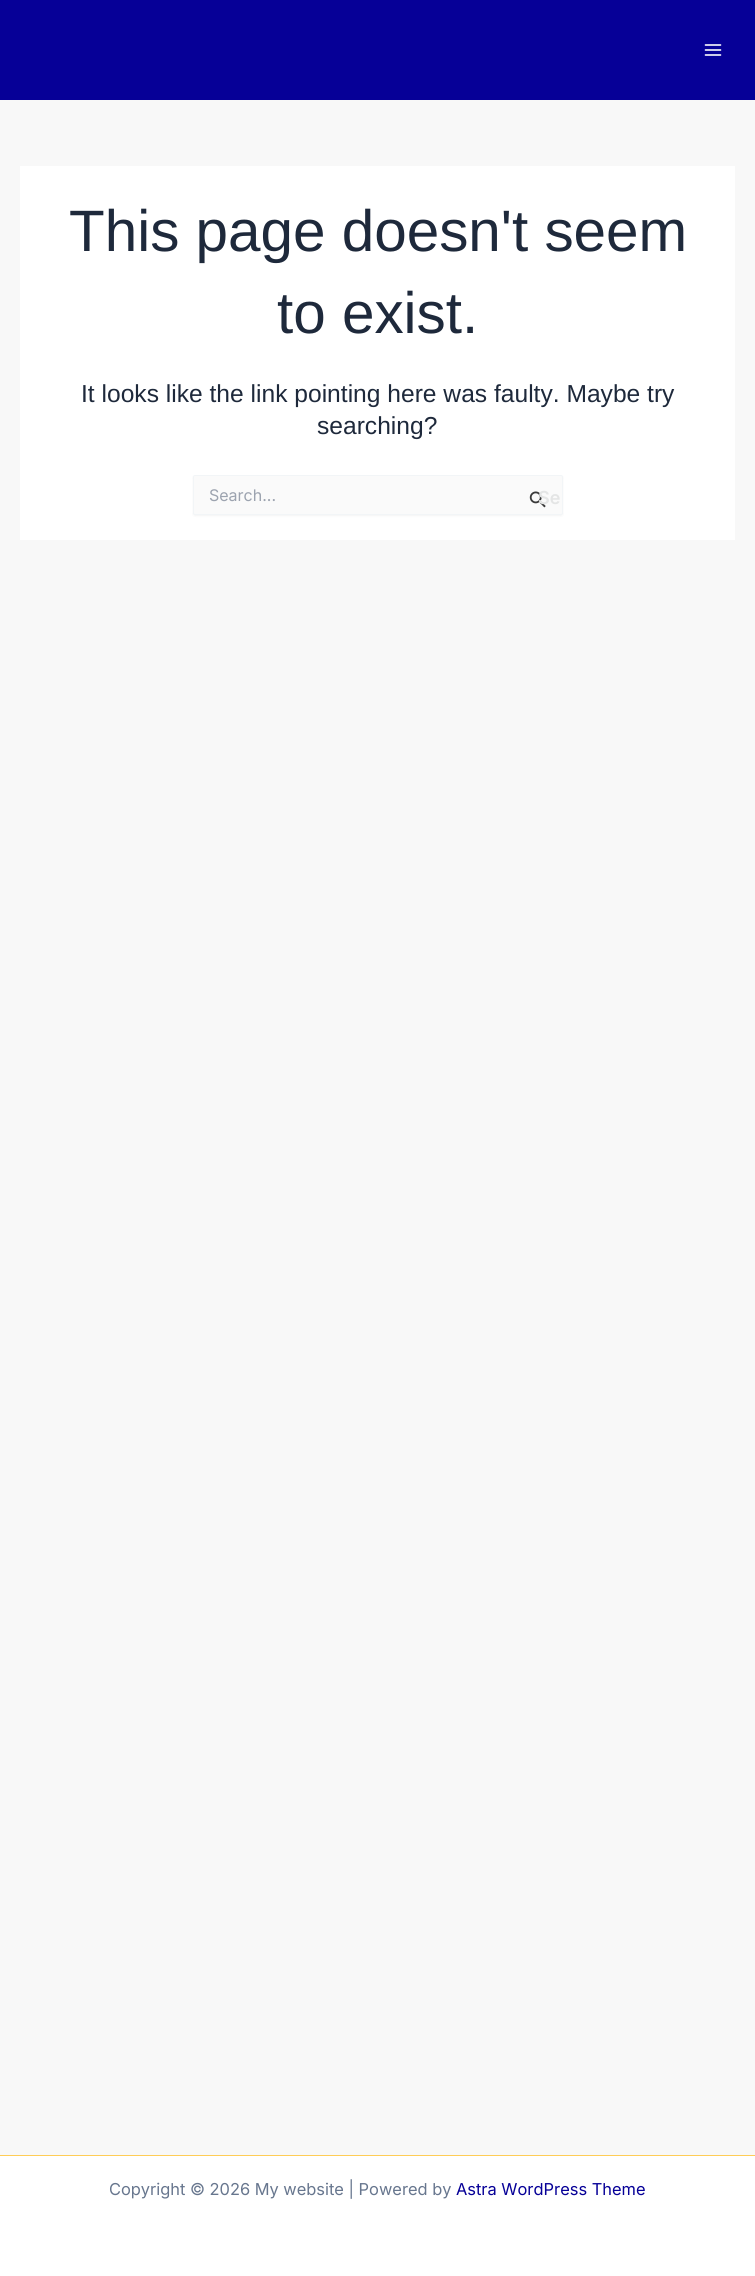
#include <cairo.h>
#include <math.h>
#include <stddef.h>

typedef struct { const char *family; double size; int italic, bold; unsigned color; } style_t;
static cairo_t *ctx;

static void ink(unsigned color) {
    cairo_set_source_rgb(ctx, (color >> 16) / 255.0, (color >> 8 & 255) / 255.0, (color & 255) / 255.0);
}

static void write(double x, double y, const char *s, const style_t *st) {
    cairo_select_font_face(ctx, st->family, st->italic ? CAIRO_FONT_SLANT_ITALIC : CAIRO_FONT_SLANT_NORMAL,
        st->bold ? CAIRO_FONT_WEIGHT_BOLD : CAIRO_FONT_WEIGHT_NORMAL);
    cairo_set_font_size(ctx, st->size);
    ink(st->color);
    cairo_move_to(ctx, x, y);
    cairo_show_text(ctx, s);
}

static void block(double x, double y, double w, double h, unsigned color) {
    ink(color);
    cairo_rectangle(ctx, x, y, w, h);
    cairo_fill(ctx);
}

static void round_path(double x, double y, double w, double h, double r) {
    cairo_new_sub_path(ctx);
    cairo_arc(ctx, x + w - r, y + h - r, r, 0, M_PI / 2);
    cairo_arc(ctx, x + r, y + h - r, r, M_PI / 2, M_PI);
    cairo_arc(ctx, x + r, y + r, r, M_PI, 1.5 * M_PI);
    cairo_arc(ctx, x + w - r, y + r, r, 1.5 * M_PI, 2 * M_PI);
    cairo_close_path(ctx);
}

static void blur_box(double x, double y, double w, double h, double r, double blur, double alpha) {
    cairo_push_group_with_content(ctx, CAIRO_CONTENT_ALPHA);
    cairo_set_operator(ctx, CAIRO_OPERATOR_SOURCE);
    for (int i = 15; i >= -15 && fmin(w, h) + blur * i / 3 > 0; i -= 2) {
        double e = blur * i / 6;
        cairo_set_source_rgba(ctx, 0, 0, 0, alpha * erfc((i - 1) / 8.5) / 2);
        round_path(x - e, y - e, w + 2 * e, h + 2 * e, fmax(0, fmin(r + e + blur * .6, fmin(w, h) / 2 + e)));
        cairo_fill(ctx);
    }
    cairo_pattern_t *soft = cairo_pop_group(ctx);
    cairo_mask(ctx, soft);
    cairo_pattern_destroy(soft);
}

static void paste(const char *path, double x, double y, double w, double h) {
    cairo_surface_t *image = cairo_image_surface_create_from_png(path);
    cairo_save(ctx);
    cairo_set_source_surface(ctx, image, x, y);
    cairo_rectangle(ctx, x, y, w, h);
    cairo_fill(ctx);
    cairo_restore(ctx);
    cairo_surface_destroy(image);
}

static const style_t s1 = {"Liberation Sans", 58.4, 0, 0, 0x1e293b};
static const style_t s2 = {"Liberation Sans", 24.6, 0, 0, 0x1e293b};
static const style_t s3 = {"Inter", 16, 0, 0, 0x9ca3af};
static const style_t s4 = {"Inter SemiBold", 18, 0, 0, 0xe4e5e5};
static const style_t s5 = {"Inter", 16.4, 0, 0, 0x67768e};
static const style_t s6 = {"Inter", 16.4, 0, 0, 0x060097};

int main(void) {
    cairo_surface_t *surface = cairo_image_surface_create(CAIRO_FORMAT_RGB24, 755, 2276);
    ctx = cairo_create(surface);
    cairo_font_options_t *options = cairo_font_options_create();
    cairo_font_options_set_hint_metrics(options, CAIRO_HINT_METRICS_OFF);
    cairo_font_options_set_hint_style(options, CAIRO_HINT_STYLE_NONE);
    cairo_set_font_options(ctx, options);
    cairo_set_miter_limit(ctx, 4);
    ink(0xf8f8f8);
    cairo_paint(ctx);
    block(0, 0, 755, 100, 0x060097);
    paste("pic1.png", 704, 44, 18, 12);
    block(20, 166, 715, 374, 0xffffff);
    write(69, 251, "This page doesn't seem", &s1);
    write(277, 333, "to exist.", &s1);
    write(81, 402, "It looks like the link pointing here was faulty. Maybe try", &s2);
    write(317, 434, "searching?", &s2);
    ink(0x000000);
    blur_box(193, 476, 370, 40, 2, 1, 0.05);
    ink(0xfafafa);
    round_path(193.5, 475.5, 369, 39, 1.5);
    cairo_fill_preserve(ctx);
    ink(0xf2f5f7);
    cairo_set_line_width(ctx, 1);
    cairo_stroke(ctx);
    write(209, 501, "Search...", &s3);
    paste("pic2.png", 529, 491, 17, 17);
    write(538, 504, "Se", &s4);
    block(0, 2156, 755, 120, 0xffffff);
    block(0, 2155, 755, 1, 0xffcd57);
    write(109, 2195, "Copyright © 2026 My website | Powered by", &s5);
    write(456, 2195, "Astra WordPress Theme", &s6);
    cairo_surface_write_to_png(surface, "screenshot.png");
    cairo_font_options_destroy(options);
    cairo_destroy(ctx);
    cairo_surface_destroy(surface);
    return 0;
}
